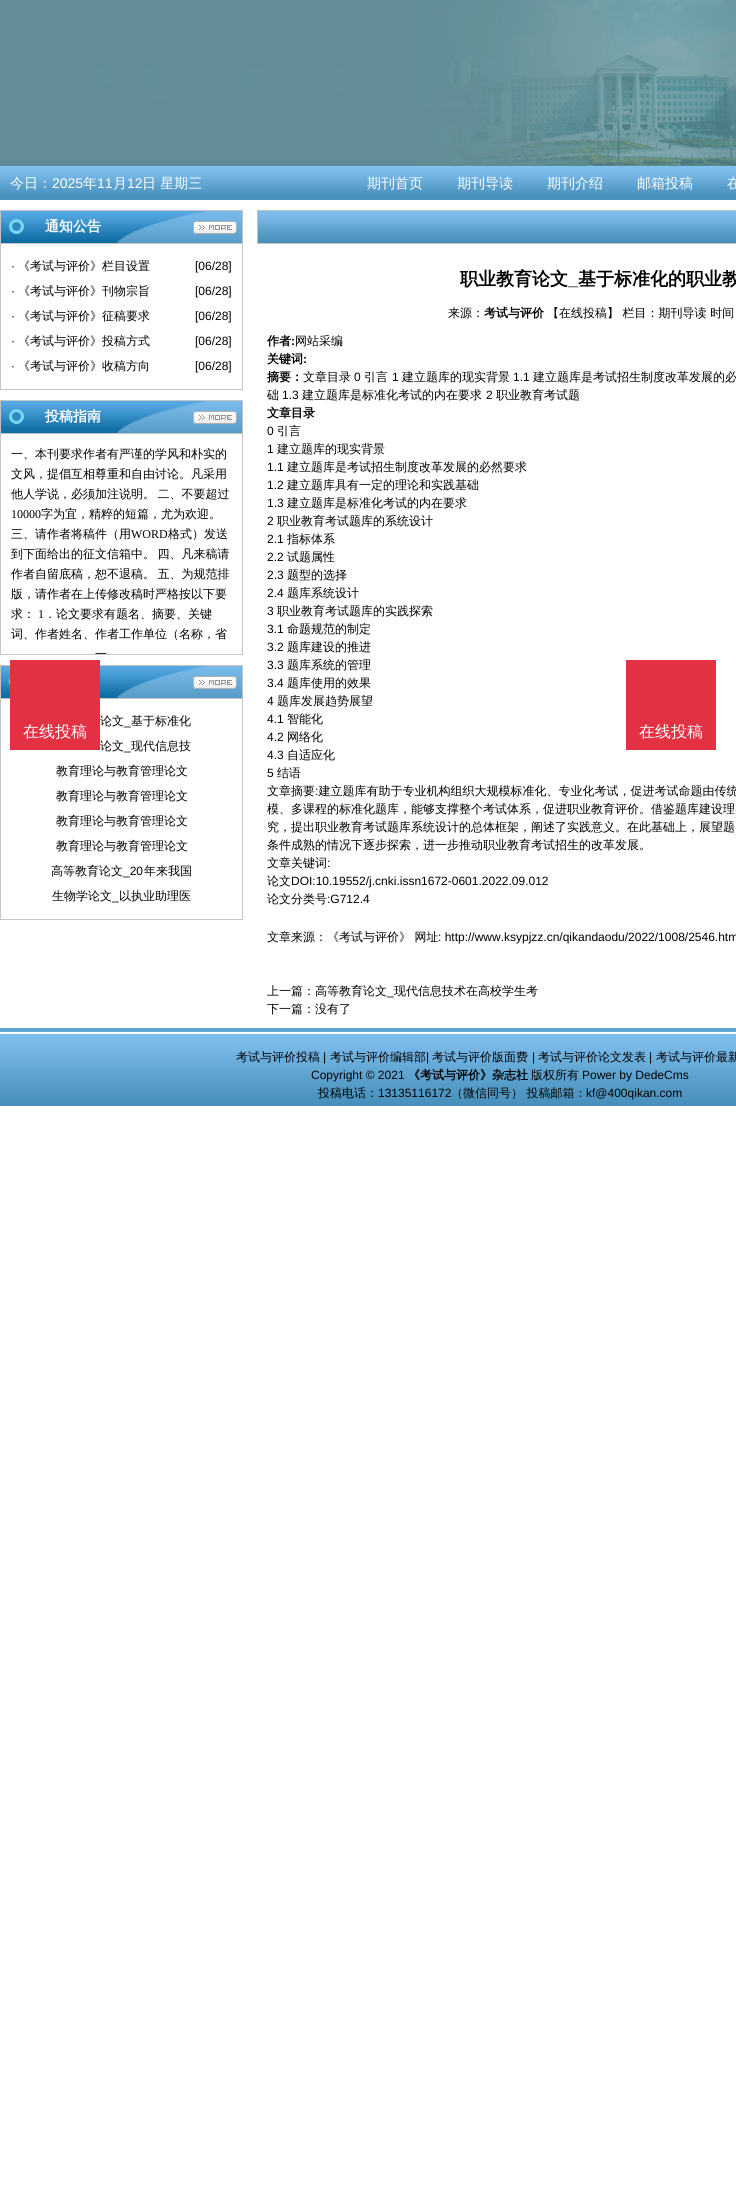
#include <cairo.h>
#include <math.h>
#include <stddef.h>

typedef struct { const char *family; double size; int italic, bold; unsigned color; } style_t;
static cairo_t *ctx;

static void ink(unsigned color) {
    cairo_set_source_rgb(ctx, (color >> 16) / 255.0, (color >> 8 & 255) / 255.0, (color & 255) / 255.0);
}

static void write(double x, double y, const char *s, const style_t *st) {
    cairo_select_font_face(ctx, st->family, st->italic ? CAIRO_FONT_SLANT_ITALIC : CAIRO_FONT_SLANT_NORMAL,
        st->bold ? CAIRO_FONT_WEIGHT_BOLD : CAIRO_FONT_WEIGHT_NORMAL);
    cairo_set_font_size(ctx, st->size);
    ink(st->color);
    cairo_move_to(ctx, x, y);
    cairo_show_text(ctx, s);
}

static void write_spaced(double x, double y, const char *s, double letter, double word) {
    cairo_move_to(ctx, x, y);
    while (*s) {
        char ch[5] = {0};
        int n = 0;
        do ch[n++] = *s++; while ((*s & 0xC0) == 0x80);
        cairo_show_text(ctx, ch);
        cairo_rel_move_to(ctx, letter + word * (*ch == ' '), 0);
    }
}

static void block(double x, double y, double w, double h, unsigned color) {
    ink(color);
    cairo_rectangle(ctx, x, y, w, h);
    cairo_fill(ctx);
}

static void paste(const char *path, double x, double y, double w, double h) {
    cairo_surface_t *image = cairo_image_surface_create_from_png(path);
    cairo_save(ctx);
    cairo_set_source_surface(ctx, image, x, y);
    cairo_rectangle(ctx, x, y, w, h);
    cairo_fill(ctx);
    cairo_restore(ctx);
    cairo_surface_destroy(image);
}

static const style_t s1 = {"WenQuanYi Zen Hei Medium", 14, 0, 0, 0xffffff};
static const style_t s2 = {"Liberation Sans", 14, 0, 0, 0xffffff};
static const style_t s3 = {"WenQuanYi Zen Hei", 14, 0, 1, 0xffffff};
static const style_t s4 = {"Liberation Sans", 12, 0, 0, 0x000000};
static const style_t s5 = {"WenQuanYi Zen Hei Medium", 12, 0, 0, 0x000000};
static const style_t s6 = {"Liberation Serif", 12, 0, 0, 0x000000};
static const style_t s7 = {"WenQuanYi Zen Hei", 18, 0, 1, 0x000000};
static const style_t s8 = {"Liberation Sans", 18, 0, 1, 0x000000};
static const style_t s9 = {"WenQuanYi Zen Hei", 12, 0, 1, 0x000000};
static const style_t s10 = {"Liberation Sans", 12, 0, 1, 0x000000};
static const style_t s11 = {"WenQuanYi Zen Hei Medium", 16, 0, 0, 0xffffff};

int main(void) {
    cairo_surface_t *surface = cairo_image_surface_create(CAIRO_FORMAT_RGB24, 736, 2199);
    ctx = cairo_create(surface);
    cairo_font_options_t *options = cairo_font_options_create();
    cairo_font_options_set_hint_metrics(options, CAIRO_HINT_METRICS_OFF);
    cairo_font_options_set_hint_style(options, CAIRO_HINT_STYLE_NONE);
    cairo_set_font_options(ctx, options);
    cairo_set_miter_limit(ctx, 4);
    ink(0xffffff);
    cairo_paint(ctx);
    paste("pic1.png", 0, 0, 736, 166);
    paste("pic2.png", 0, 166, 736, 34);
    write(10, 188, "今日：", &s1);
    write(52, 188, "2025", &s2);
    write(83, 188, "年", &s1);
    write(97, 188, "11", &s2);
    write(113, 188, "月", &s1);
    write(127, 188, "12", &s2);
    write(142, 188, "日 星期三", &s1);
    write(367, 188, "期刊首页", &s1);
    write(457, 188, "期刊导读", &s1);
    write(547, 188, "期刊介绍", &s1);
    write(637, 188, "邮箱投稿", &s1);
    write(727, 188, "在", &s1);
    paste("pic3.png", 0, 210, 243, 34);
    write(45, 231, "通知公告", &s3);
    block(242, 244, 1, 146, 0xc5c5c5);
    block(0, 389, 243, 1, 0xc5c5c5);
    block(0, 244, 1, 146, 0xc5c5c5);
    write(11, 270, "·", &s4);
    write(18, 270, "《考试与评价》栏目设置", &s5);
    write(195, 270, "[06/28]", &s4);
    write(11, 295, "·", &s4);
    write(18, 295, "《考试与评价》刊物宗旨", &s5);
    write(195, 295, "[06/28]", &s4);
    write(11, 320, "·", &s4);
    write(18, 320, "《考试与评价》征稿要求", &s5);
    write(195, 320, "[06/28]", &s4);
    write(11, 345, "·", &s4);
    write(18, 345, "《考试与评价》投稿方式", &s5);
    write(195, 345, "[06/28]", &s4);
    write(11, 370, "·", &s4);
    write(18, 370, "《考试与评价》收稿方向", &s5);
    write(195, 370, "[06/28]", &s4);
    paste("pic3.png", 0, 400, 243, 34);
    write(45, 421, "投稿指南", &s3);
    block(242, 434, 1, 221, 0xc5c5c5);
    block(0, 654, 243, 1, 0xc5c5c5);
    block(0, 434, 1, 221, 0xc5c5c5);
    write(11, 458, "一、本刊要求作者有严谨的学风和朴实的", &s5);
    write(11, 478, "文风，提倡互相尊重和自由讨论。凡采用", &s5);
    write_spaced(11, 498, "他人学说，必须加注说明。 二、不要超过", 0, -1);
    write(11, 518, "10000", &s6);
    write(41, 518, "字为宜，精粹的短篇，尤为欢迎。", &s5);
    write(11, 538, "三、请作者将稿件（用", &s5);
    write(131, 538, "WORD", &s6);
    write(168, 538, "格式）发送", &s5);
    write_spaced(11, 558, "到下面给出的征文信箱中。 四、凡来稿请", 0, -1);
    write_spaced(11, 578, "作者自留底稿，恕不退稿。 五、为规范排", 0, -1);
    write(11, 598, "版，请作者在上传修改稿时严格按以下要", &s5);
    write(11, 618, "求：", &s5);
    write(38, 618, "1", &s6);
    write(44, 618, "．论文要求有题名、摘要、关键", &s5);
    write(11, 638, "词、作者姓名、作者工作单位（名称，省", &s5);
    write(95, 658, "一", &s5);
    paste("pic3.png", 0, 665, 243, 34);
    block(242, 699, 1, 221, 0xc5c5c5);
    block(0, 919, 243, 1, 0xc5c5c5);
    block(0, 699, 1, 221, 0xc5c5c5);
    write(100, 725, "论文", &s5);
    write(124, 725, "_", &s4);
    write(131, 725, "基于标准化", &s5);
    write(100, 750, "论文", &s5);
    write(124, 750, "_", &s4);
    write(131, 750, "现代信息技", &s5);
    write(56, 775, "教育理论与教育管理论文", &s5);
    write(56, 800, "教育理论与教育管理论文", &s5);
    write(56, 825, "教育理论与教育管理论文", &s5);
    write(56, 850, "教育理论与教育管理论文", &s5);
    write(51, 875, "高等教育论文", &s5);
    write(123, 875, "_20", &s4);
    write(144, 875, "年来我国", &s5);
    write(52, 900, "生物学论文", &s5);
    write(112, 900, "_", &s4);
    write(119, 900, "以执业助理医", &s5);
    paste("pic4.png", 257, 210, 479, 34);
    write(460, 285, "职业教育论文", &s7);
    write(568, 285, "_", &s8);
    write(578, 285, "基于标准化的职业教", &s7);
    write(448, 317, "来源：", &s5);
    write(484, 317, "考试与评价", &s9);
    write(547, 317, "【在线投稿】 栏目：期刊导读 时间", &s5);
    write(267, 345, "作者", &s9);
    write(291, 345, ":", &s10);
    write(295, 345, "网站采编", &s5);
    write(267, 363, "关键词", &s9);
    write(303, 363, ":", &s10);
    write(267, 381, "摘要：", &s9);
    write(303, 381, "文章目录", &s5);
    write(354, 381, "0", &s4);
    write(364, 381, "引言", &s5);
    write(392, 381, "1", &s4);
    write(402, 381, "建立题库的现实背景", &s5);
    write(513, 381, "1.1", &s4);
    write(533, 381, "建立题库是考试招生制度改革发展的必", &s5);
    write(267, 399, "础", &s5);
    write(282, 399, "1.3", &s4);
    write(302, 399, "建立题库是标准化考试的内在要求", &s5);
    write(486, 399, "2", &s4);
    write(496, 399, "职业教育考试题", &s5);
    write(267, 417, "文章目录", &s9);
    write(267, 435, "0", &s4);
    write(277, 435, "引言", &s5);
    write(267, 453, "1", &s4);
    write(277, 453, "建立题库的现实背景", &s5);
    write(267, 471, "1.1", &s4);
    write(287, 471, "建立题库是考试招生制度改革发展的必然要求", &s5);
    write(267, 489, "1.2", &s4);
    write(287, 489, "建立题库具有一定的理论和实践基础", &s5);
    write(267, 507, "1.3", &s4);
    write(287, 507, "建立题库是标准化考试的内在要求", &s5);
    write(267, 525, "2", &s4);
    write(277, 525, "职业教育考试题库的系统设计", &s5);
    write(267, 543, "2.1", &s4);
    write(287, 543, "指标体系", &s5);
    write(267, 561, "2.2", &s4);
    write(287, 561, "试题属性", &s5);
    write(267, 579, "2.3", &s4);
    write(287, 579, "题型的选择", &s5);
    write(267, 597, "2.4", &s4);
    write(287, 597, "题库系统设计", &s5);
    write(267, 615, "3", &s4);
    write(277, 615, "职业教育考试题库的实践探索", &s5);
    write(267, 633, "3.1", &s4);
    write(287, 633, "命题规范的制定", &s5);
    write(267, 651, "3.2", &s4);
    write(287, 651, "题库建设的推进", &s5);
    write(267, 669, "3.3", &s4);
    write(287, 669, "题库系统的管理", &s5);
    write(267, 687, "3.4", &s4);
    write(287, 687, "题库使用的效果", &s5);
    write(267, 705, "4", &s4);
    write(277, 705, "题库发展趋势展望", &s5);
    write(267, 723, "4.1", &s4);
    write(287, 723, "智能化", &s5);
    write(267, 741, "4.2", &s4);
    write(287, 741, "网络化", &s5);
    write(267, 759, "4.3", &s4);
    write(287, 759, "自适应化", &s5);
    write(267, 777, "5", &s4);
    write(277, 777, "结语", &s5);
    write(267, 795, "文章摘要 建立题库有助于专业机构组织大规模标准化、专业化考试，促进考试命题由传统", &s5);
    write(315, 795, ":", &s4);
    write(267, 813, "模、多课程的标准化题库，能够支撑整个考试体系，促进职业教育评价。借鉴题库建设理", &s5);
    write(267, 831, "究，提出职业教育考试题库系统设计的总体框架，阐述了实践意义。在此基础上，展望题", &s5);
    write(267, 849, "条件成熟的情况下逐步探索，进一步推动职业教育考试招生的改革发展。", &s5);
    write(267, 867, "文章关键词", &s5);
    write(327, 867, ":", &s4);
    write(267, 885, "论文", &s5);
    write(291, 885, "DOI:10.19552/j.cnki.issn1672-0601.2022.09.012", &s4);
    write(267, 903, "论文分类号", &s5);
    write(327, 903, ":G712.4", &s4);
    write(267, 941, "文章来源：《考试与评价》 网址", &s5);
    write(438, 941, ": http://www.ksypjzz.cn/qikandaodu/2022/1008/2546.htm", &s4);
    write(267, 995, "上一篇：高等教育论文", &s5);
    write(387, 995, "_", &s4);
    write(394, 995, "现代信息技术在高校学生考", &s5);
    write(267, 1013, "下一篇：没有了", &s5);
    block(10, 660, 90, 90, 0xe33043);
    write(23, 737, "在线投稿", &s11);
    block(626, 660, 90, 90, 0xe33043);
    write(639, 737, "在线投稿", &s11);
    paste("pic5.png", 0, 1028, 736, 78);
    write(236, 1061, "考试与评价投稿", &s5);
    write(323, 1061, "|", &s4);
    write(330, 1061, "考试与评价编辑部", &s5);
    write(426, 1061, "|", &s4);
    write(432, 1061, "考试与评价版面费", &s5);
    write(532, 1061, "|", &s4);
    write(538, 1061, "考试与评价论文发表", &s5);
    write(649, 1061, "|", &s4);
    write(656, 1061, "考试与评价最新", &s5);
    write(311, 1079, "Copyright © 2021", &s4);
    write(408, 1079, "《考试与评价》杂志社", &s9);
    write(531, 1079, "版权所有", &s5);
    write(582, 1079, "Power by DedeCms", &s4);
    write(318, 1097, "投稿电话：", &s5);
    write(378, 1097, "13135116172", &s4);
    write(451, 1097, "（微信同号） 投稿邮箱：", &s5);
    write(586, 1097, "kf@400qikan.com", &s4);
    cairo_surface_write_to_png(surface, "screenshot.png");
    cairo_font_options_destroy(options);
    cairo_destroy(ctx);
    cairo_surface_destroy(surface);
    return 0;
}
